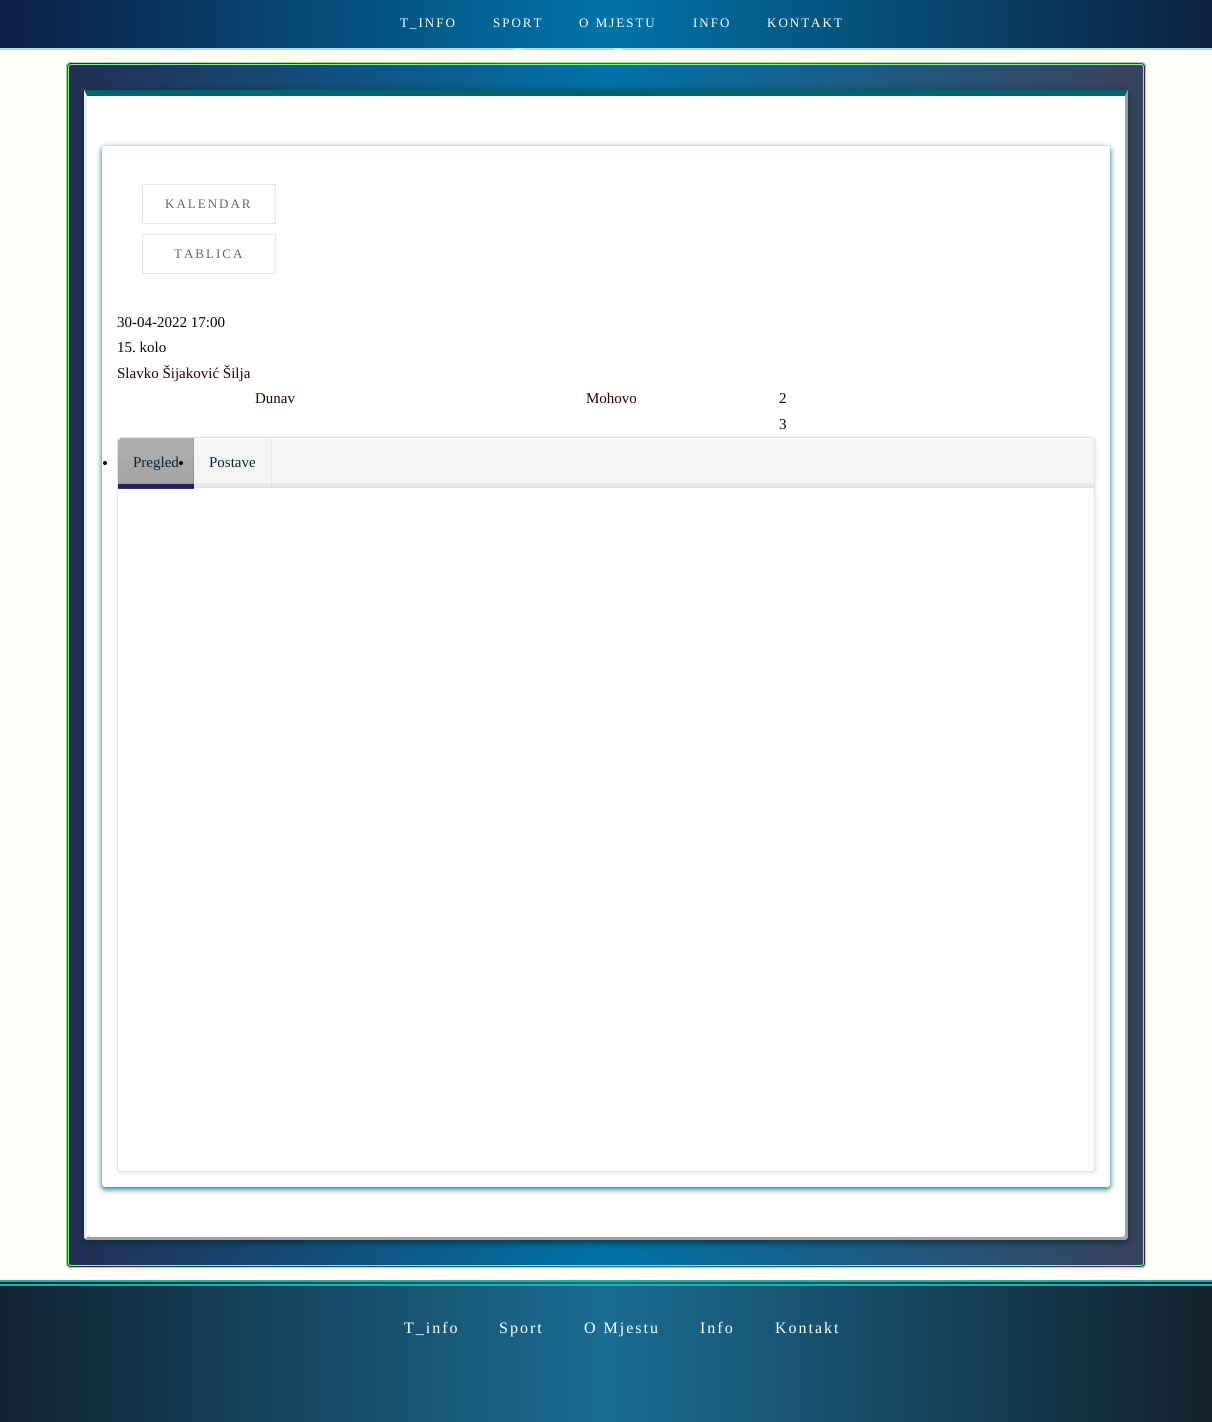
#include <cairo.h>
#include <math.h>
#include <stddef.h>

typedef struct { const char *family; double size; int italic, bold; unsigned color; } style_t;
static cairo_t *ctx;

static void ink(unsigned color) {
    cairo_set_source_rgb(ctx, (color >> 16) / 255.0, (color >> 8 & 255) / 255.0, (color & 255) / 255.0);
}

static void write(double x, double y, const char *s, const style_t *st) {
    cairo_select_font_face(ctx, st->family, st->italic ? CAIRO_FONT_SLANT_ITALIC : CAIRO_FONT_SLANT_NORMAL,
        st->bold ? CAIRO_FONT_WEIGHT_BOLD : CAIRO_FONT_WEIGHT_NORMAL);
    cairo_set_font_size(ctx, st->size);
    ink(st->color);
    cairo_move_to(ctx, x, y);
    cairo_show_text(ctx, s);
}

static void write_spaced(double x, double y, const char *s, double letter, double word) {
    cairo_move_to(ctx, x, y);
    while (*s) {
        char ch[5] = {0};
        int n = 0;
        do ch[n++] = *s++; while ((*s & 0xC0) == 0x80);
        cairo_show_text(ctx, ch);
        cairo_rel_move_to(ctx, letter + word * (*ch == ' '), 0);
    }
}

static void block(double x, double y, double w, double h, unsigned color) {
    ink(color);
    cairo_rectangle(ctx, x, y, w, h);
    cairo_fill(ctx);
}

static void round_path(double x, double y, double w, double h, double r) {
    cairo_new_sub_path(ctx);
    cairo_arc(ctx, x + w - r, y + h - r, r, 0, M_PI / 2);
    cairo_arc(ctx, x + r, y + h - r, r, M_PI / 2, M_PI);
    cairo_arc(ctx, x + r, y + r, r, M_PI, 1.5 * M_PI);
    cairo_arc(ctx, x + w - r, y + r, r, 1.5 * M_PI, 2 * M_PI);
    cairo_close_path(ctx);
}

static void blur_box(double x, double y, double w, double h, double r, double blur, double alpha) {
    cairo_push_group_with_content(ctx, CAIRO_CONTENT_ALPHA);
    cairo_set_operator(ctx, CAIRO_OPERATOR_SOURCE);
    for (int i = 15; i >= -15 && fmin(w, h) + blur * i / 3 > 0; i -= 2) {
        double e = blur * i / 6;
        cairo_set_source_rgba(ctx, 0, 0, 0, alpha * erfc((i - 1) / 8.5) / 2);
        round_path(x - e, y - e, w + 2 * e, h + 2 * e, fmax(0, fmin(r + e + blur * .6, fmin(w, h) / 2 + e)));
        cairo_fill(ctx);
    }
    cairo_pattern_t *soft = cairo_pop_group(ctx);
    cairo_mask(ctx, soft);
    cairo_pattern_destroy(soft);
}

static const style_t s1 = {"Liberation Serif", 15, 0, 0, 0x050505};
static const style_t s2 = {"Liberation Serif", 15, 0, 0, 0x290000};
static const style_t s3 = {"Liberation Serif", 15, 0, 0, 0x022740};

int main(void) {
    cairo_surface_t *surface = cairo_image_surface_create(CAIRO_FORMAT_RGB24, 1212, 1422);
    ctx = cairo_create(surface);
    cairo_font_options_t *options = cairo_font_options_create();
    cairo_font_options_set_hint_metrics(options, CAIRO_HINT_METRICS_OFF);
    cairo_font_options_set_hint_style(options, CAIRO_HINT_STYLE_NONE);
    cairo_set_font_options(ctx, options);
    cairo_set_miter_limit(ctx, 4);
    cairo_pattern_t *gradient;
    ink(0xffffff);
    cairo_paint(ctx);
    gradient = cairo_pattern_create_linear(0, 23, 1212, 23);
    cairo_pattern_add_color_stop_rgba(gradient, 0, 0.047, 0.118, 0.271, 1);
    cairo_pattern_add_color_stop_rgba(gradient, 0.5, 0, 0.451, 0.659, 1);
    cairo_pattern_add_color_stop_rgba(gradient, 1, 0.051, 0.129, 0.247, 1);
    cairo_set_source(ctx, gradient);
    cairo_pattern_destroy(gradient);
    cairo_rectangle(ctx, 0, 0, 1212, 48);
    cairo_fill(ctx);
    block(0, 48, 1212, 2, 0xadd8e6);
    cairo_select_font_face(ctx, "Liberation Serif", CAIRO_FONT_SLANT_NORMAL, CAIRO_FONT_WEIGHT_NORMAL);
    cairo_set_font_size(ctx, 13);
    ink(0xffffff);
    write_spaced(400, 27, "T_INFO", 2, 0);
    write_spaced(493, 27, "SPORT", 2, 0);
    cairo_set_source_rgba(ctx, 1, 1, 1, 0.5);
    cairo_new_path(ctx);
    cairo_move_to(ctx, 514, 48);
    cairo_line_to(ctx, 524, 48);
    cairo_line_to(ctx, 519, 53);
    cairo_close_path(ctx);
    cairo_fill(ctx);
    ink(0xffffff);
    write_spaced(579, 27, "O MJESTU", 2, 0);
    cairo_set_source_rgba(ctx, 1, 1, 1, 0.5);
    cairo_new_path(ctx);
    cairo_move_to(ctx, 612, 48);
    cairo_line_to(ctx, 622, 48);
    cairo_line_to(ctx, 617, 53);
    cairo_close_path(ctx);
    cairo_fill(ctx);
    ink(0xffffff);
    write_spaced(693, 27, "INFO", 2, 0);
    write_spaced(767, 27, "KONTAKT", 2, 0);
    block(0, 50, 1212, 1230, 0xfffffa);
    cairo_save(ctx);
    round_path(66, 62, 1080, 1206, 5);
    cairo_clip(ctx);
    gradient = cairo_pattern_create_linear(-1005, 665, 69, 665);
    cairo_pattern_add_color_stop_rgba(gradient, 0, 0.137, 0.18, 0.329, 1);
    cairo_pattern_add_color_stop_rgba(gradient, 0.5, 0, 0.451, 0.659, 1);
    cairo_pattern_add_color_stop_rgba(gradient, 1, 0.227, 0.259, 0.361, 1);
    cairo_set_source(ctx, gradient);
    cairo_pattern_destroy(gradient);
    cairo_rectangle(ctx, 66, 62, 3, 1206);
    cairo_fill(ctx);
    gradient = cairo_pattern_create_linear(69, 665, 1143, 665);
    cairo_pattern_add_color_stop_rgba(gradient, 0, 0.137, 0.18, 0.329, 1);
    cairo_pattern_add_color_stop_rgba(gradient, 0.5, 0, 0.451, 0.659, 1);
    cairo_pattern_add_color_stop_rgba(gradient, 1, 0.227, 0.259, 0.365, 1);
    cairo_set_source(ctx, gradient);
    cairo_pattern_destroy(gradient);
    cairo_rectangle(ctx, 69, 62, 1074, 1206);
    cairo_fill(ctx);
    gradient = cairo_pattern_create_linear(1143, 665, 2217, 665);
    cairo_pattern_add_color_stop_rgba(gradient, 0, 0.137, 0.18, 0.329, 1);
    cairo_pattern_add_color_stop_rgba(gradient, 0.5, 0, 0.451, 0.659, 1);
    cairo_pattern_add_color_stop_rgba(gradient, 1, 0.227, 0.259, 0.361, 1);
    cairo_set_source(ctx, gradient);
    cairo_pattern_destroy(gradient);
    cairo_rectangle(ctx, 1143, 62, 3, 1206);
    cairo_fill(ctx);
    cairo_restore(ctx);
    round_path(66.5, 62.5, 1079, 1205, 4.5);
    ink(0x90ee90);
    cairo_set_line_width(ctx, 1);
    cairo_stroke(ctx);
    round_path(68.5, 64.5, 1075, 1201, 2.5);
    cairo_stroke(ctx);
    ink(0x0a2c33);
    blur_box(84, 92, 1044, 1150, 5, 4, 1);
    ink(0xffffff);
    cairo_new_path(ctx);
    cairo_move_to(ctx, 84, 90);
    cairo_line_to(ctx, 1128, 90);
    cairo_line_to(ctx, 1128, 1235);
    cairo_curve_to(ctx, 1128, 1238, 1126, 1240, 1123, 1240);
    cairo_line_to(ctx, 89, 1240);
    cairo_curve_to(ctx, 86, 1240, 84, 1238, 84, 1235);
    cairo_close_path(ctx);
    cairo_fill(ctx);
    ink(0x00636d);
    cairo_new_path(ctx);
    cairo_move_to(ctx, 84, 90);
    cairo_line_to(ctx, 87, 96);
    cairo_line_to(ctx, 1125, 96);
    cairo_line_to(ctx, 1128, 90);
    cairo_close_path(ctx);
    cairo_fill(ctx);
    ink(0x9f9f9f);
    cairo_new_path(ctx);
    cairo_move_to(ctx, 1128, 90);
    cairo_line_to(ctx, 1125, 96);
    cairo_line_to(ctx, 1125, 1235);
    cairo_line_to(ctx, 1124, 1236);
    cairo_line_to(ctx, 1127, 1239);
    cairo_curve_to(ctx, 1128, 1238, 1128, 1236, 1128, 1235);
    cairo_close_path(ctx);
    cairo_fill(ctx);
    cairo_new_path(ctx);
    cairo_move_to(ctx, 89, 1240);
    cairo_line_to(ctx, 1123, 1240);
    cairo_curve_to(ctx, 1124, 1240, 1126, 1240, 1127, 1239);
    cairo_line_to(ctx, 1124, 1236);
    cairo_line_to(ctx, 1123, 1237);
    cairo_line_to(ctx, 89, 1237);
    cairo_line_to(ctx, 88, 1236);
    cairo_line_to(ctx, 85, 1239);
    cairo_curve_to(ctx, 86, 1240, 88, 1240, 89, 1240);
    cairo_close_path(ctx);
    cairo_fill(ctx);
    ink(0xeeeeee);
    cairo_new_path(ctx);
    cairo_move_to(ctx, 87, 96);
    cairo_line_to(ctx, 84, 90);
    cairo_line_to(ctx, 84, 1235);
    cairo_curve_to(ctx, 84, 1236, 84, 1238, 85, 1239);
    cairo_line_to(ctx, 88, 1236);
    cairo_line_to(ctx, 87, 1235);
    cairo_close_path(ctx);
    cairo_fill(ctx);
    cairo_save(ctx);
    cairo_set_fill_rule(ctx, CAIRO_FILL_RULE_EVEN_ODD);
    cairo_new_path(ctx);
    cairo_move_to(ctx, 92, 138);
    cairo_line_to(ctx, 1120, 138);
    cairo_line_to(ctx, 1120, 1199);
    cairo_line_to(ctx, 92, 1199);
    cairo_close_path(ctx);
    cairo_move_to(ctx, 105, 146);
    cairo_line_to(ctx, 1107, 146);
    cairo_curve_to(ctx, 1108.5, 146, 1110, 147.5, 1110, 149);
    cairo_line_to(ctx, 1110, 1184);
    cairo_curve_to(ctx, 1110, 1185.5, 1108.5, 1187, 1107, 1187);
    cairo_line_to(ctx, 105, 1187);
    cairo_curve_to(ctx, 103.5, 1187, 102, 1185.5, 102, 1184);
    cairo_line_to(ctx, 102, 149);
    cairo_curve_to(ctx, 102, 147.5, 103.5, 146, 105, 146);
    cairo_close_path(ctx);
    cairo_clip(ctx);
    ink(0x166a80);
    blur_box(102, 148, 1008, 1041, 3, 3, 1);
    cairo_restore(ctx);
    cairo_rectangle(ctx, 142.5, 184.5, 133, 39);
    ink(0xe6e6e6);
    cairo_stroke(ctx);
    ink(0x666666);
    write_spaced(165, 208, "KALENDAR", 2, 0);
    cairo_rectangle(ctx, 142.5, 234.5, 133, 39);
    ink(0xe6e6e6);
    cairo_stroke(ctx);
    ink(0x666666);
    write_spaced(174, 258, "TABLICA", 2, 0);
    write(117, 327, "30-04-2022 17:00", &s1);
    write(117, 352, "15. kolo", &s1);
    write(117, 378, "Slavko Šijaković Šilja", &s2);
    write(255, 403, "Dunav", &s2);
    write(586, 403, "Mohovo", &s2);
    write(779, 403, "2", &s1);
    write(779, 429, "3", &s1);
    ink(0x000000);
    blur_box(118, 438, 978, 50, 4, 2, 0.1);
    ink(0xf5f5f5);
    cairo_new_path(ctx);
    cairo_move_to(ctx, 121, 437);
    cairo_line_to(ctx, 1091, 437);
    cairo_curve_to(ctx, 1093, 437, 1095, 439, 1095, 441);
    cairo_line_to(ctx, 1095, 487);
    cairo_line_to(ctx, 117, 487);
    cairo_line_to(ctx, 117, 441);
    cairo_curve_to(ctx, 117, 439, 119, 437, 121, 437);
    cairo_close_path(ctx);
    cairo_fill(ctx);
    block(118, 483, 976, 4, 0xe9e9e9);
    ink(0xffffff);
    cairo_new_path(ctx);
    cairo_move_to(ctx, 121, 439);
    cairo_line_to(ctx, 1091, 439);
    cairo_curve_to(ctx, 1093, 439, 1094, 440, 1094, 442);
    cairo_curve_to(ctx, 1094, 440, 1093, 438, 1091, 438);
    cairo_line_to(ctx, 121, 438);
    cairo_curve_to(ctx, 119, 438, 118, 440, 118, 442);
    cairo_curve_to(ctx, 118, 440, 119, 439, 121, 439);
    cairo_close_path(ctx);
    cairo_fill(ctx);
    ink(0xdfe3e7);
    cairo_set_fill_rule(ctx, CAIRO_FILL_RULE_EVEN_ODD);
    cairo_new_path(ctx);
    cairo_move_to(ctx, 121, 437);
    cairo_line_to(ctx, 1091, 437);
    cairo_curve_to(ctx, 1093, 437, 1095, 439, 1095, 441);
    cairo_line_to(ctx, 1095, 487);
    cairo_line_to(ctx, 117, 487);
    cairo_line_to(ctx, 117, 441);
    cairo_curve_to(ctx, 117, 439, 119, 437, 121, 437);
    cairo_close_path(ctx);
    cairo_move_to(ctx, 121, 438);
    cairo_line_to(ctx, 1091, 438);
    cairo_curve_to(ctx, 1093, 438, 1094, 439, 1094, 441);
    cairo_line_to(ctx, 1094, 487);
    cairo_line_to(ctx, 118, 487);
    cairo_line_to(ctx, 118, 441);
    cairo_curve_to(ctx, 118, 439, 119, 438, 121, 438);
    cairo_close_path(ctx);
    cairo_fill(ctx);
    ink(0x050505);
    cairo_arc(ctx, 105, 463, 2, 0, 2 * M_PI);
    cairo_fill(ctx);
    cairo_arc(ctx, 181, 463, 2, 0, 2 * M_PI);
    cairo_fill(ctx);
    ink(0x000000);
    blur_box(118, 488, 978, 685, 4, 2, 0.1);
    ink(0xffffff);
    cairo_new_path(ctx);
    cairo_move_to(ctx, 117.5, 487.5);
    cairo_line_to(ctx, 1094.5, 487.5);
    cairo_line_to(ctx, 1094.5, 1168);
    cairo_curve_to(ctx, 1094.5, 1170, 1093, 1171.5, 1091, 1171.5);
    cairo_line_to(ctx, 121, 1171.5);
    cairo_curve_to(ctx, 119, 1171.5, 117.5, 1170, 117.5, 1168);
    cairo_close_path(ctx);
    cairo_fill_preserve(ctx);
    ink(0xdfe3e7);
    cairo_stroke(ctx);
    cairo_set_source_rgba(ctx, 0, 0, 0, 0.3);
    cairo_new_path(ctx);
    cairo_move_to(ctx, 122, 438);
    cairo_line_to(ctx, 194, 438);
    cairo_line_to(ctx, 194, 488);
    cairo_line_to(ctx, 118, 488);
    cairo_line_to(ctx, 118, 442);
    cairo_curve_to(ctx, 118, 440, 120, 438, 122, 438);
    cairo_close_path(ctx);
    cairo_fill(ctx);
    gradient = cairo_pattern_create_linear(156, 438, 156, 488);
    cairo_pattern_add_color_stop_rgba(gradient, 0, 0, 0, 0, 0);
    cairo_pattern_add_color_stop_rgba(gradient, 1, 0, 0, 0, 0.05);
    cairo_set_source(ctx, gradient);
    cairo_pattern_destroy(gradient);
    cairo_rectangle(ctx, 118, 460, 76, 28);
    cairo_fill(ctx);
    cairo_set_source_rgba(ctx, 0, 0, 0, 0.08);
    cairo_rectangle(ctx, 193, 438, 1, 50);
    cairo_fill(ctx);
    write(133, 467, "Pregled", &s3);
    cairo_set_source_rgba(ctx, 0.004, 0.004, 0.337, 0.8);
    cairo_rectangle(ctx, 118, 484, 76, 5);
    cairo_fill(ctx);
    cairo_set_source_rgba(ctx, 0, 0, 0, 0.05);
    cairo_rectangle(ctx, 271, 438, 1, 50);
    cairo_fill(ctx);
    cairo_rectangle(ctx, 193, 438, 1, 50);
    cairo_fill(ctx);
    write(209, 467, "Postave", &s3);
    gradient = cairo_pattern_create_linear(0, 1360, 1212, 1360);
    cairo_pattern_add_color_stop_rgba(gradient, 0, 0.067, 0.137, 0.196, 1);
    cairo_pattern_add_color_stop_rgba(gradient, 0.5, 0.102, 0.424, 0.573, 1);
    cairo_pattern_add_color_stop_rgba(gradient, 1, 0.071, 0.129, 0.173, 1);
    cairo_set_source(ctx, gradient);
    cairo_pattern_destroy(gradient);
    cairo_rectangle(ctx, 0, 1282, 1212, 140);
    cairo_fill(ctx);
    block(0, 1280, 1212, 2, 0x20b2aa);
    block(0, 1284, 1212, 2, 0x20b2aa);
    cairo_set_font_size(ctx, 16);
    ink(0xffffff);
    write_spaced(404, 1333, "T_info", 2, 0);
    write_spaced(499, 1333, "Sport", 2, 0);
    write_spaced(584, 1333, "O Mjestu", 2, 0);
    write_spaced(700, 1333, "Info", 2, 0);
    write_spaced(775, 1333, "Kontakt", 2, 0);
    cairo_surface_write_to_png(surface, "screenshot.png");
    cairo_font_options_destroy(options);
    cairo_destroy(ctx);
    cairo_surface_destroy(surface);
    return 0;
}
